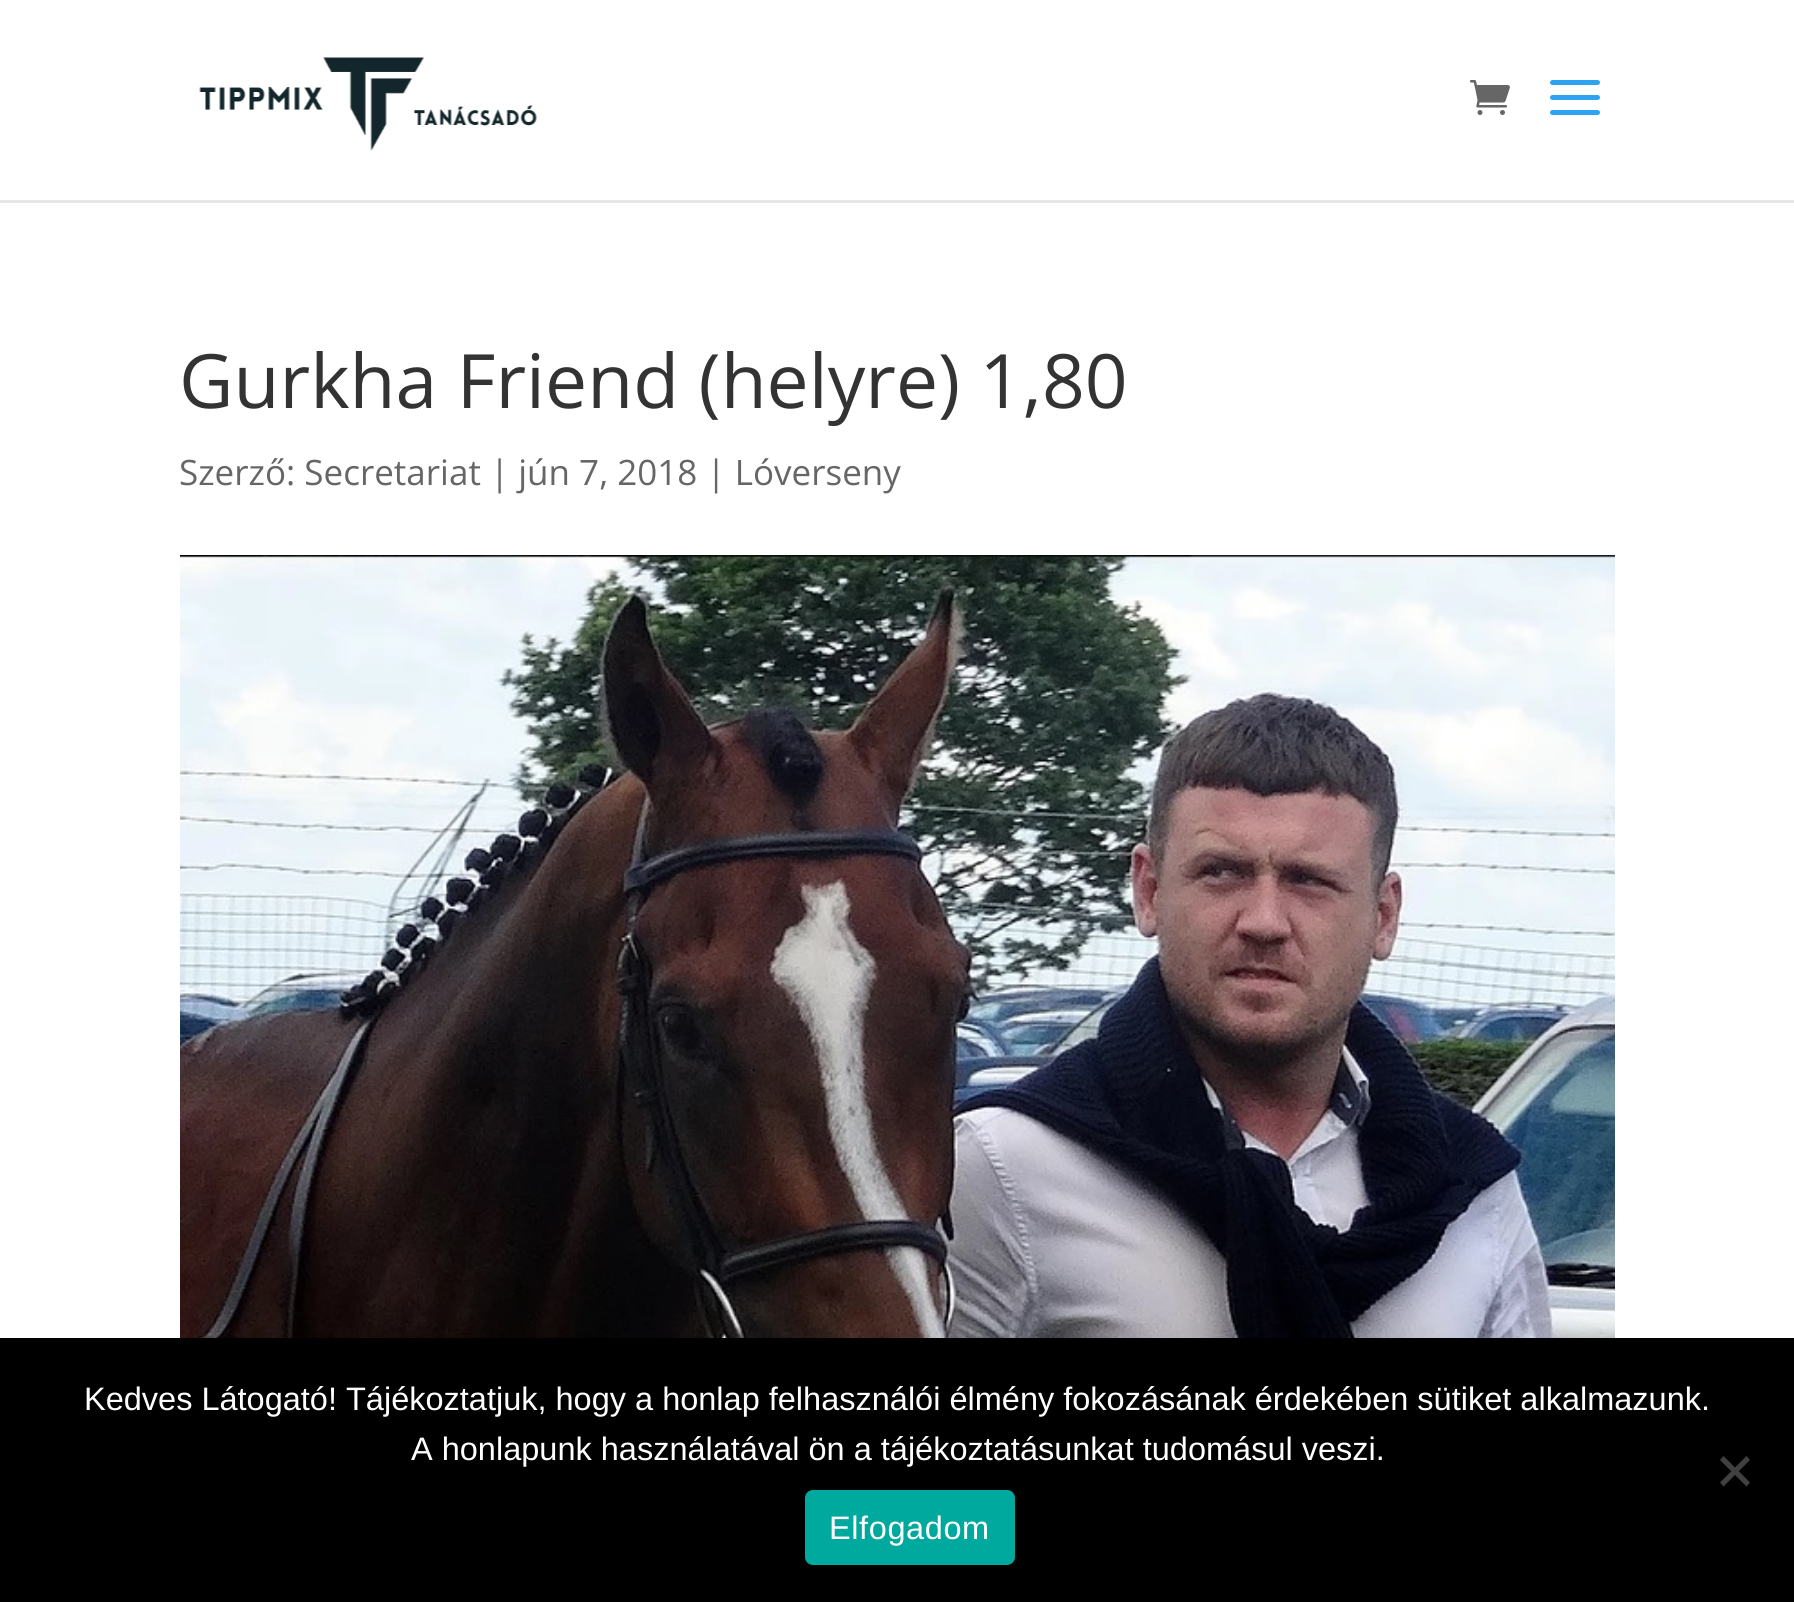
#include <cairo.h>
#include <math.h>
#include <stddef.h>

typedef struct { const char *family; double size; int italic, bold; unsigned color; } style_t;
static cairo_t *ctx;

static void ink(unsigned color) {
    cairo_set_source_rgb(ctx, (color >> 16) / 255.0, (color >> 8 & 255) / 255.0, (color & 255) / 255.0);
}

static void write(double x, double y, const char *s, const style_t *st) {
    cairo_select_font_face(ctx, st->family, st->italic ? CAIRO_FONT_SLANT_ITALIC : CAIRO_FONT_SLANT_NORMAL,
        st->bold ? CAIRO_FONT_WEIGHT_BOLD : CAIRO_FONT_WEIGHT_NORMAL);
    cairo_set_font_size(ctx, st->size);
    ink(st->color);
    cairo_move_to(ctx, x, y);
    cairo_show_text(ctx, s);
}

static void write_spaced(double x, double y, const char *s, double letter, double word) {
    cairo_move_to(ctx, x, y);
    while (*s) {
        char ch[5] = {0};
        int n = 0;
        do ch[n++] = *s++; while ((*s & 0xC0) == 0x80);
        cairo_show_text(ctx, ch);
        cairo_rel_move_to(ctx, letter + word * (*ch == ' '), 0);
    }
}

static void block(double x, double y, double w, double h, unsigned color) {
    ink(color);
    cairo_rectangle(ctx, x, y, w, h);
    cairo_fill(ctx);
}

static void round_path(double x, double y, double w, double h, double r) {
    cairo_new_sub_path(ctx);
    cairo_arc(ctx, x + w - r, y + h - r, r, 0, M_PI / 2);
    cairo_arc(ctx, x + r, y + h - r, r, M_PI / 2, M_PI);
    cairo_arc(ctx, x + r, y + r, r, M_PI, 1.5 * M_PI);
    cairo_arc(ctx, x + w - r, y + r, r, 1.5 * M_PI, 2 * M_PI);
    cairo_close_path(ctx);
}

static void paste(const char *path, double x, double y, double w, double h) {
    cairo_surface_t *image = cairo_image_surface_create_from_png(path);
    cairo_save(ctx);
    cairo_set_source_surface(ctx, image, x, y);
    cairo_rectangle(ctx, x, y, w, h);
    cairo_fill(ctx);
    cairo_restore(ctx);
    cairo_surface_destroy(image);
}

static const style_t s1 = {"Open Sans", 75, 0, 0, 0x333333};
static const style_t s2 = {"Open Sans", 35, 0, 0, 0x666666};
static const style_t s3 = {"Liberation Sans", 32.5, 0, 0, 0xffffff};

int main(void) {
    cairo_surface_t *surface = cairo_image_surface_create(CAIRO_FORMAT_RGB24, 1794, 1602);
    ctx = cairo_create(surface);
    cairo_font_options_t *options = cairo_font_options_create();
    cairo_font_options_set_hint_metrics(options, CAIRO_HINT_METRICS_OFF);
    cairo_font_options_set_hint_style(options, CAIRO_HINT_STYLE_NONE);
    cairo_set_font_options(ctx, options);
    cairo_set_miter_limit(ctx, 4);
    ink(0xffffff);
    cairo_paint(ctx);
    block(0, 200, 1794, 3, 0xe6e6e6);
    paste("pic1.png", 199, 57, 338, 94);
    paste("pic2.png", 1469, 80, 41, 35);
    paste("pic3.png", 1550, 80, 50, 35);
    write(179, 408, "Gurkha Friend (helyre) 1,80", &s1);
    write(179, 485, "Szerző: Secretariat | jún 7, 2018 | Lóverseny", &s2);
    paste("pic4.png", 180, 555, 1435, 783);
    block(0, 1338, 1794, 264, 0x000000);
    write(84, 1410, "Kedves Látogató! Tájékoztatjuk, hogy a honlap felhasználói élmény fokozásának érdekében sütiket alkalmazunk.", &s3);
    write(411, 1460, "A honlapunk használatával ön a tájékoztatásunkat tudomásul veszi.", &s3);
    ink(0x404040);
    cairo_new_path(ctx);
    cairo_move_to(ctx, 1746.5, 1456);
    cairo_line_to(ctx, 1750, 1460);
    cairo_line_to(ctx, 1723.5, 1486.5);
    cairo_line_to(ctx, 1720, 1482.5);
    cairo_close_path(ctx);
    cairo_fill(ctx);
    cairo_new_path(ctx);
    cairo_move_to(ctx, 1720, 1460);
    cairo_line_to(ctx, 1723.5, 1456);
    cairo_line_to(ctx, 1750, 1482.5);
    cairo_line_to(ctx, 1746.5, 1486.5);
    cairo_close_path(ctx);
    cairo_fill(ctx);
    ink(0x00a99d);
    round_path(805, 1490, 210, 75, 8);
    cairo_fill(ctx);
    ink(0xffffff);
    write_spaced(829, 1539, "Elfogadom", 0.6, 0);
    cairo_surface_write_to_png(surface, "screenshot.png");
    cairo_font_options_destroy(options);
    cairo_destroy(ctx);
    cairo_surface_destroy(surface);
    return 0;
}
